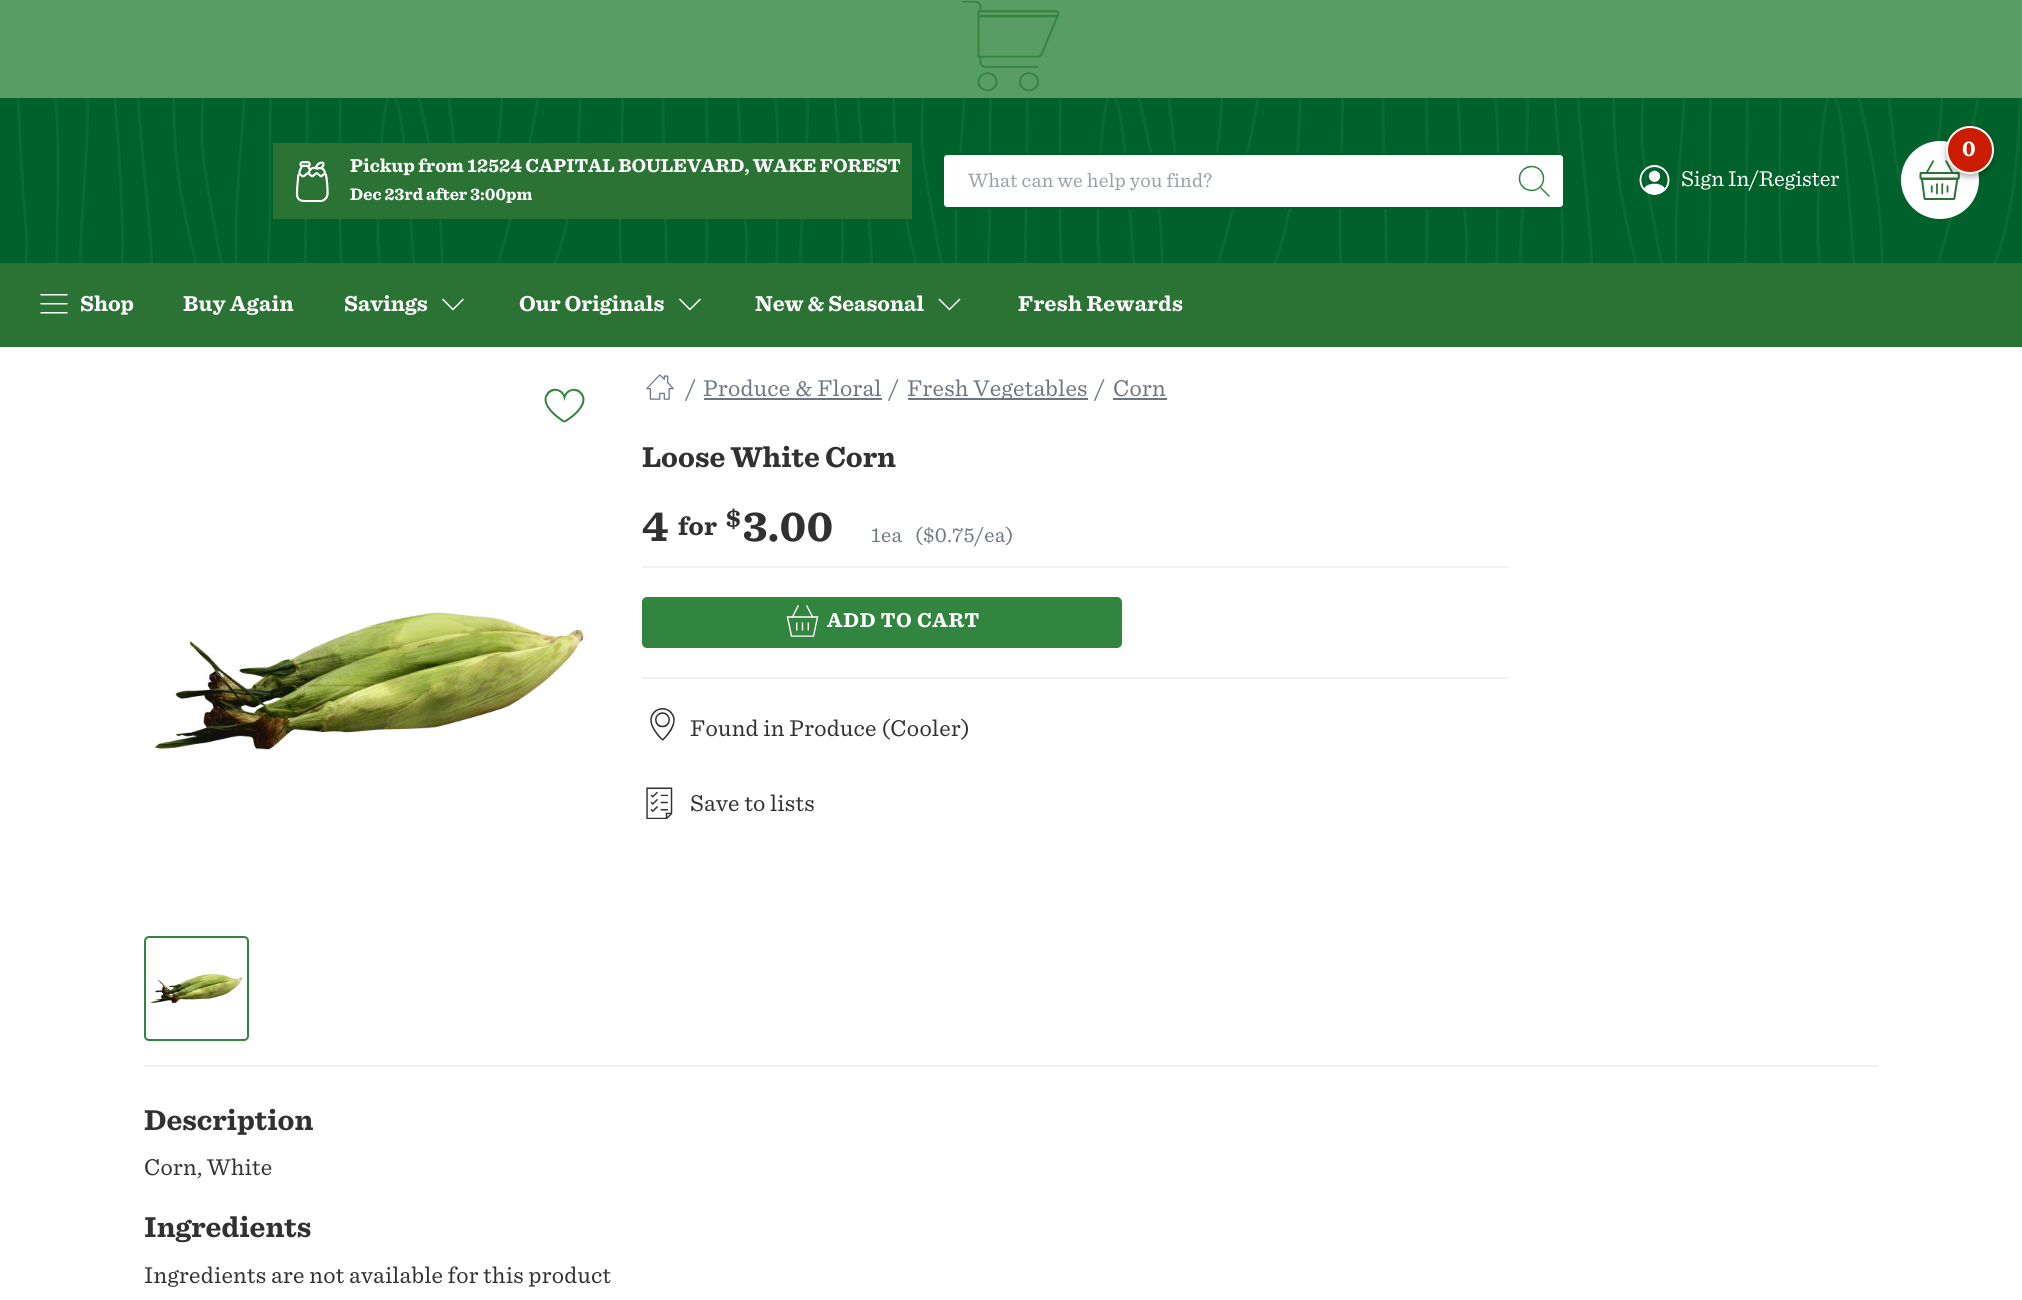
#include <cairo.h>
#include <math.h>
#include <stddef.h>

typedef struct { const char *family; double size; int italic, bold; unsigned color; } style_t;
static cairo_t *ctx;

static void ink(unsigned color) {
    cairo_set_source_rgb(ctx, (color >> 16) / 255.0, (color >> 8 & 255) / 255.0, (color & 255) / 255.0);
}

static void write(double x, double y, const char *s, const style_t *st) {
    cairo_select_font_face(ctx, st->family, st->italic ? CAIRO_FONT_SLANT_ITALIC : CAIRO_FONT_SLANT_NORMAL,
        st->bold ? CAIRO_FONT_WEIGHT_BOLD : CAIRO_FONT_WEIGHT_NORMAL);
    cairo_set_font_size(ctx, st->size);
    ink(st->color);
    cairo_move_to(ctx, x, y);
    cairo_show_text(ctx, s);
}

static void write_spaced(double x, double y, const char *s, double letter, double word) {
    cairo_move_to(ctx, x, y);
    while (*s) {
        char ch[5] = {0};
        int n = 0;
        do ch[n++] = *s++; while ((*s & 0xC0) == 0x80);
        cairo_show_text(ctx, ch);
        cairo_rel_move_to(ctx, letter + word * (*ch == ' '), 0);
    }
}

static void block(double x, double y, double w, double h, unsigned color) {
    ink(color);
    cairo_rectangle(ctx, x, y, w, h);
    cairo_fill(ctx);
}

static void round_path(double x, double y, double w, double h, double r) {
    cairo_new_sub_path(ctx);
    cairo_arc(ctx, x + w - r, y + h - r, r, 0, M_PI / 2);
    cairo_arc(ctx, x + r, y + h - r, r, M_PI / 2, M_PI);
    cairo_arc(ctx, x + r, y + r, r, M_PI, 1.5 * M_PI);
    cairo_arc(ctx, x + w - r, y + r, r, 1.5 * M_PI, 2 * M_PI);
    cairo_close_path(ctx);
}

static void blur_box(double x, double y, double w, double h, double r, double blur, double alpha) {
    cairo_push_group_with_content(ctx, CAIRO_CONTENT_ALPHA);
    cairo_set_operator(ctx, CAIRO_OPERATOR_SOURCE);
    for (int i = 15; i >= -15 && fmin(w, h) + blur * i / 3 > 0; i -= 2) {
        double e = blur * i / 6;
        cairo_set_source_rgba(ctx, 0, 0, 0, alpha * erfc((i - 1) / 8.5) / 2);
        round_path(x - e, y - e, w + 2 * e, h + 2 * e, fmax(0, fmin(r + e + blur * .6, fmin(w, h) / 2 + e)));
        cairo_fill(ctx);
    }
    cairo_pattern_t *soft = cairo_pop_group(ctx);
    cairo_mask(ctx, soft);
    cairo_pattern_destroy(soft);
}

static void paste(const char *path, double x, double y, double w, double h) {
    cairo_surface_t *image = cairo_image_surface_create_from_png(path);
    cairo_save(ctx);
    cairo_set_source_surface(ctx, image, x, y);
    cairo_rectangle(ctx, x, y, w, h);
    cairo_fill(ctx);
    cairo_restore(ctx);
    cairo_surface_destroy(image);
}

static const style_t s1 = {"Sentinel", 22.5, 0, 1, 0xffffff};
static const style_t s2 = {"Sentinel", 19.5, 0, 1, 0xffffff};
static const style_t s3 = {"Sentinel", 17.5, 0, 1, 0xffffff};
static const style_t s4 = {"Sentinel", 22.5, 0, 0, 0xffffff};
static const style_t s5 = {"Sentinel", 30, 0, 1, 0x313131};

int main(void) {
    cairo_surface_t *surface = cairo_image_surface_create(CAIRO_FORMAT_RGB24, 2022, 1300);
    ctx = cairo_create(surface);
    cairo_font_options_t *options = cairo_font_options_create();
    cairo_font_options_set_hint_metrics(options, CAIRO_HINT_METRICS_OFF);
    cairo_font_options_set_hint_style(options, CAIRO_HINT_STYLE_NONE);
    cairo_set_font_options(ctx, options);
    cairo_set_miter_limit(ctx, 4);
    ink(0xffffff);
    cairo_paint(ctx);
    block(0, 98, 2022, 165, 0x00612b);
    paste("pic1.png", 16, 98, 2006, 165);
    block(0, 0, 2022, 98, 0x5a9d64);
    paste("pic2.png", 962, 1, 98, 91);
    ink(0xffffff);
    cairo_arc(ctx, 1940, 180, 39, 0, 2 * M_PI);
    cairo_fill(ctx);
    paste("pic3.png", 1919, 160, 41, 40);
    ink(0x000000);
    blur_box(1946, 129, 48, 48, 24, 3, 0.3);
    ink(0xcb1c00);
    cairo_arc(ctx, 1970, 150, 23, 0, 2 * M_PI);
    cairo_fill_preserve(ctx);
    ink(0xffffff);
    cairo_stroke(ctx);
    write(1962, 156, "0", &s1);
    block(273, 143, 639, 76, 0x2a7335);
    paste("pic4.png", 295, 161, 34, 42);
    cairo_save(ctx);
    cairo_rectangle(ctx, 350, 158, 550, 21);
    cairo_clip(ctx);
    write(350, 172, "Pickup from 12524 CAPITAL BOULEVARD, WAKE FOREST", &s2);
    cairo_restore(ctx);
    cairo_save(ctx);
    cairo_rectangle(ctx, 350, 188, 183, 19);
    cairo_clip(ctx);
    write(350, 200, "Dec 23rd after 3:00pm", &s3);
    cairo_restore(ctx);
    round_path(943, 154, 621, 54, 4);
    ink(0x00612b);
    cairo_stroke(ctx);
    ink(0xffffff);
    cairo_new_path(ctx);
    cairo_move_to(ctx, 947, 155);
    cairo_line_to(ctx, 1503, 155);
    cairo_line_to(ctx, 1503, 207);
    cairo_line_to(ctx, 947, 207);
    cairo_curve_to(ctx, 945.5, 207, 944, 205.5, 944, 204);
    cairo_line_to(ctx, 944, 158);
    cairo_curve_to(ctx, 944, 156.5, 945.5, 155, 947, 155);
    cairo_close_path(ctx);
    cairo_fill(ctx);
    cairo_select_font_face(ctx, "Sentinel", CAIRO_FONT_SLANT_NORMAL, CAIRO_FONT_WEIGHT_NORMAL);
    cairo_set_font_size(ctx, 20.4);
    ink(0x99a0a8);
    write_spaced(968, 187, "What can we help you find?", 0.3, 0);
    ink(0xffffff);
    cairo_new_path(ctx);
    cairo_move_to(ctx, 1503, 155);
    cairo_line_to(ctx, 1560, 155);
    cairo_curve_to(ctx, 1561.5, 155, 1563, 156.5, 1563, 158);
    cairo_line_to(ctx, 1563, 204);
    cairo_curve_to(ctx, 1563, 205.5, 1561.5, 207, 1560, 207);
    cairo_line_to(ctx, 1503, 207);
    cairo_close_path(ctx);
    cairo_fill(ctx);
    paste("pic5.png", 1518, 165, 32, 32);
    paste("pic6.png", 1639, 165, 31, 30);
    write(1681, 186, "Sign In/Register", &s4);
    block(0, 263, 2022, 84, 0x2a7335);
    paste("pic7.png", 40, 294, 28, 20);
    write(80, 311, "Shop", &s1);
    write_spaced(183, 311, "Buy Again", 0.3, 0);
    write(344, 311, "Savings", &s1);
    paste("pic8.png", 442, 298, 22, 13);
    write(519, 311, "Our Originals", &s1);
    paste("pic8.png", 679, 298, 22, 13);
    write(755, 311, "New & Seasonal", &s1);
    paste("pic9.png", 938, 298, 23, 13);
    write_spaced(1018, 311, "Fresh Rewards", 0.3, 0);
    paste("pic10.png", 544, 388, 41, 35);
    paste("pic11.png", 144, 606, 444, 144);
    round_path(145, 937, 103, 103, 4);
    ink(0x31853e);
    cairo_stroke(ctx);
    paste("pic12.png", 150, 973, 93, 31);
    paste("pic13.png", 646, 374, 28, 26);
    cairo_select_font_face(ctx, "Sentinel", CAIRO_FONT_SLANT_NORMAL, CAIRO_FONT_WEIGHT_NORMAL);
    cairo_set_font_size(ctx, 24);
    ink(0x6d7783);
    write_spaced(686, 396, "/", 0.3, 0);
    write_spaced(703, 396, "Produce & Floral", 0.3, 0);
    block(704, 398, 178, 2, 0x6d7783);
    write_spaced(889, 396, "/", 0.3, 0);
    block(908, 398, 180, 2, 0x6d7783);
    write_spaced(907, 396, "Fresh Vegetables", 0.3, 0);
    write_spaced(1095, 396, "/", 0.3, 0);
    write_spaced(1113, 396, "Corn", 0.3, 0);
    block(1113, 398, 54, 2, 0x6d7783);
    write(642, 467, "Loose White Corn", &s5);
    cairo_set_font_size(ctx, 44);
    write_spaced(642, 541, "4", 0.3, 0);
    cairo_set_font_size(ctx, 27);
    write_spaced(678, 535, "for", 0.3, 0);
    cairo_set_font_size(ctx, 26);
    write_spaced(726, 527, "$", 0.3, 0);
    cairo_set_font_size(ctx, 44);
    write_spaced(743, 541, "3.00", 0.3, 0);
    cairo_select_font_face(ctx, "Sentinel", CAIRO_FONT_SLANT_NORMAL, CAIRO_FONT_WEIGHT_NORMAL);
    cairo_set_font_size(ctx, 21.5);
    ink(0x6d7783);
    write_spaced(871, 542, "1ea", 0.3, 0);
    write_spaced(915, 542, "($0.75/ea)", 0.3, 0);
    block(642, 566, 867, 2, 0xf7f0f0);
    block(642, 677, 867, 2, 0xf7f0f0);
    ink(0x31853e);
    round_path(642, 597, 480, 51, 5);
    cairo_fill(ctx);
    paste("pic14.png", 786, 605, 33, 32);
    cairo_select_font_face(ctx, "Sentinel", CAIRO_FONT_SLANT_NORMAL, CAIRO_FONT_WEIGHT_BOLD);
    cairo_set_font_size(ctx, 21);
    ink(0xffffff);
    write_spaced(827, 627, "ADD TO CART", 0.75, 0);
    paste("pic15.png", 650, 708, 25, 33);
    cairo_select_font_face(ctx, "Sentinel", CAIRO_FONT_SLANT_NORMAL, CAIRO_FONT_WEIGHT_NORMAL);
    cairo_set_font_size(ctx, 24);
    ink(0x313131);
    write_spaced(690, 736, "Found in Produce (Cooler)", 0.3, 0);
    paste("pic16.png", 646, 787, 27, 32);
    write_spaced(690, 811, "Save to lists", 0.3, 0);
    block(144, 1065, 1734, 2, 0xf7f0f0);
    write(144, 1130, "Description", &s5);
    cairo_select_font_face(ctx, "Sentinel", CAIRO_FONT_SLANT_NORMAL, CAIRO_FONT_WEIGHT_NORMAL);
    cairo_set_font_size(ctx, 24);
    write_spaced(144, 1175, "Corn, White", 0.3, 0);
    write(144, 1237, "Ingredients", &s5);
    cairo_select_font_face(ctx, "Sentinel", CAIRO_FONT_SLANT_NORMAL, CAIRO_FONT_WEIGHT_NORMAL);
    cairo_set_font_size(ctx, 24);
    write_spaced(144, 1283, "Ingredients are not available for this product", 0.3, 0);
    cairo_surface_write_to_png(surface, "screenshot.png");
    cairo_font_options_destroy(options);
    cairo_destroy(ctx);
    cairo_surface_destroy(surface);
    return 0;
}
